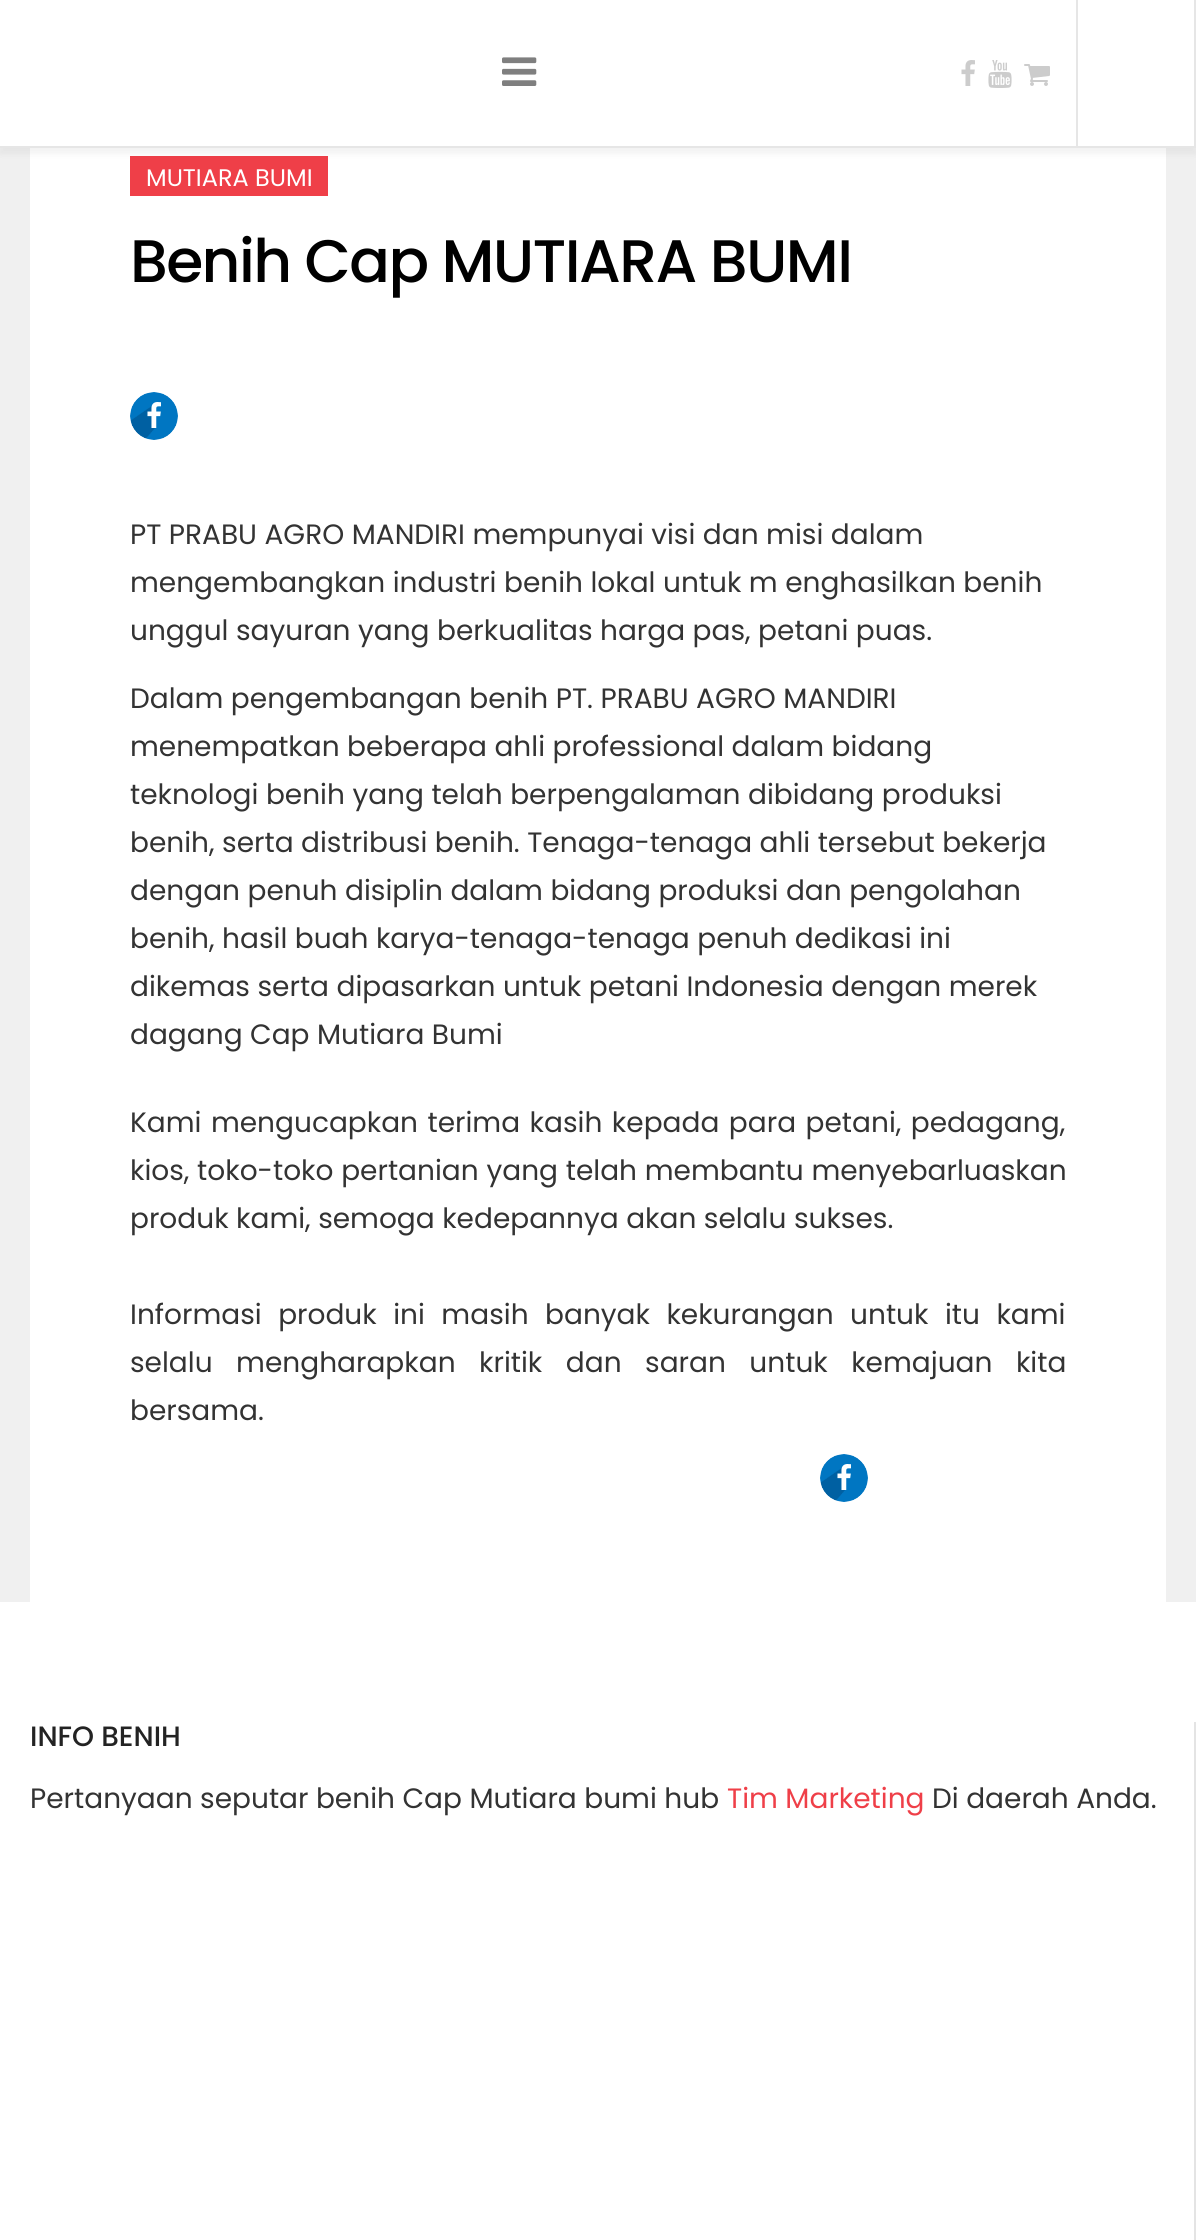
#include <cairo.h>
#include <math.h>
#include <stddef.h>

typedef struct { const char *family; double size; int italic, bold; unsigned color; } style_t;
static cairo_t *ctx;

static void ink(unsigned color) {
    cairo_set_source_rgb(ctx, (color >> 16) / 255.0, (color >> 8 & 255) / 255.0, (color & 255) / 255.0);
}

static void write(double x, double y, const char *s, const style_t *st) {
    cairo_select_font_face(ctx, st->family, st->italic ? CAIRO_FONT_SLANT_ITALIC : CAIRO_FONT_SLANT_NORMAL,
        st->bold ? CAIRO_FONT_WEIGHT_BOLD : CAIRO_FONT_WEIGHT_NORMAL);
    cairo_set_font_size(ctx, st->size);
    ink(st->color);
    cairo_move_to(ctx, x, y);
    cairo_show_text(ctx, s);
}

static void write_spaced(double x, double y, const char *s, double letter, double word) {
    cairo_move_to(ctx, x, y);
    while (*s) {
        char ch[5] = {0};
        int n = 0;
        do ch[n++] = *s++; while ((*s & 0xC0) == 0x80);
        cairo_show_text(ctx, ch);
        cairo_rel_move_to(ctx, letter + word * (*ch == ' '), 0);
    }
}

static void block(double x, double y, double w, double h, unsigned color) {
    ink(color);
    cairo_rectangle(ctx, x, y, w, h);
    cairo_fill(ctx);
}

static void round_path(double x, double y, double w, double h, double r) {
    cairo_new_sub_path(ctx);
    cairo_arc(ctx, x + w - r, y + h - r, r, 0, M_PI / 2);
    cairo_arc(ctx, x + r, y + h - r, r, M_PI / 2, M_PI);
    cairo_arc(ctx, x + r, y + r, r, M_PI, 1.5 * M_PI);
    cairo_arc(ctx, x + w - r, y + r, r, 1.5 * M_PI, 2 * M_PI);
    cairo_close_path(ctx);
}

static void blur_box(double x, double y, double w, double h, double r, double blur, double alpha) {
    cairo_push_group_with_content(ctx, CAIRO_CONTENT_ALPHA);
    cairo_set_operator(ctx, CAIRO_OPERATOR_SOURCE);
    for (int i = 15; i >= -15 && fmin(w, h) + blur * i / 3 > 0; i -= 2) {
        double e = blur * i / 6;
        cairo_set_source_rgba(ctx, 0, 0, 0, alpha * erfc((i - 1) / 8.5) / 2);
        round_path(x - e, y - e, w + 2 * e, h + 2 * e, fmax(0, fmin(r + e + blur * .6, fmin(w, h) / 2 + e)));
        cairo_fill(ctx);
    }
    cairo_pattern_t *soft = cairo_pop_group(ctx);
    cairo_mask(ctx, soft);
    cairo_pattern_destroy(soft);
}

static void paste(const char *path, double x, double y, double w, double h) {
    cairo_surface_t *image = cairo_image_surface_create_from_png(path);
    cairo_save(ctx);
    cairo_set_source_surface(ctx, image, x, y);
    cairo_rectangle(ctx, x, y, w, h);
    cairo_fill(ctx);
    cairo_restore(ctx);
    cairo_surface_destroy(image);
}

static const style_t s1 = {"Poppins", 24, 0, 0, 0xffffff};
static const style_t s2 = {"Poppins", 28, 0, 0, 0x333333};
static const style_t s3 = {"Poppins Medium", 28, 0, 0, 0x232323};
static const style_t s4 = {"Poppins", 28, 0, 0, 0xef3f48};

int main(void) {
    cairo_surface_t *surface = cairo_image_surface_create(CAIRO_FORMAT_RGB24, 1196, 2240);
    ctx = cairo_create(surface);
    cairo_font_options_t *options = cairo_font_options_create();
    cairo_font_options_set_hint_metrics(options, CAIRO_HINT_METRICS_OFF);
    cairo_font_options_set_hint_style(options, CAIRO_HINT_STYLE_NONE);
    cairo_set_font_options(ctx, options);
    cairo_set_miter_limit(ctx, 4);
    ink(0xf0f0f0);
    cairo_paint(ctx);
    block(30, 148, 1136, 1454, 0xffffff);
    block(130, 156, 198, 40, 0xef3f48);
    ink(0x000000);
    blur_box(0, 6, 1196, 148, 0, 3, 0.05);
    block(0, 0, 1194, 146, 0xffffff);
    block(0, 146, 1196, 2, 0xe6e6e6);
    paste("pic1.png", 502, 57, 35, 29);
    paste("pic2.png", 961, 60, 14, 26);
    paste("pic3.png", 988, 60, 24, 28);
    paste("pic4.png", 1024, 64, 26, 22);
    block(1194, 0, 2, 146, 0xe6e6e6);
    block(1076, 0, 2, 146, 0xe6e6e6);
    write(146, 186, "MUTIARA BUMI", &s1);
    cairo_select_font_face(ctx, "Poppins Medium", CAIRO_FONT_SLANT_NORMAL, CAIRO_FONT_WEIGHT_NORMAL);
    cairo_set_font_size(ctx, 60);
    ink(0x000000);
    write_spaced(130, 282, "Benih Cap MUTIARA BUMI", -1.6, 0);
    paste("pic5.png", 130, 392, 48, 48);
    paste("pic6.png", 147, 402, 14, 26);
    write(130, 544, "PT PRABU AGRO MANDIRI mempunyai visi dan misi dalam", &s2);
    write(130, 592, "mengembangkan industri benih lokal untuk m enghasilkan benih", &s2);
    write(130, 640, "unggul sayuran yang berkualitas harga pas, petani puas.", &s2);
    write(130, 708, "Dalam pengembangan benih PT. PRABU AGRO MANDIRI", &s2);
    write(130, 756, "menempatkan beberapa ahli professional dalam bidang", &s2);
    write(130, 804, "teknologi benih yang telah berpengalaman dibidang produksi", &s2);
    write(130, 852, "benih, serta distribusi benih. Tenaga-tenaga ahli tersebut bekerja", &s2);
    write(130, 900, "dengan penuh disiplin dalam bidang produksi dan pengolahan", &s2);
    write(130, 948, "benih, hasil buah karya-tenaga-tenaga penuh dedikasi ini", &s2);
    write(130, 996, "dikemas serta dipasarkan untuk petani Indonesia dengan merek", &s2);
    write(130, 1044, "dagang Cap Mutiara Bumi", &s2);
    write_spaced(130, 1132, "Kami mengucapkan terima kasih kepada para petani, pedagang,", 0, 2);
    write_spaced(130, 1180, "kios, toko-toko pertanian yang telah membantu menyebarluaskan", 0, 0.25);
    write(130, 1228, "produk kami, semoga kedepannya akan selalu sukses.", &s2);
    write_spaced(130, 1324, "Informasi produk ini masih banyak kekurangan untuk itu kami", 0, 9);
    write_spaced(130, 1372, "selalu mengharapkan kritik dan saran untuk kemajuan kita", 0, 16);
    write(130, 1420, "bersama.", &s2);
    paste("pic7.png", 820, 1454, 48, 48);
    paste("pic6.png", 837, 1464, 14, 26);
    block(0, 1602, 1196, 638, 0xffffff);
    block(1194, 1722, 2, 518, 0xe4e4e4);
    write(30, 1746, "INFO BENIH", &s3);
    write(30, 1808, "Pertanyaan seputar benih Cap Mutiara bumi hub", &s2);
    write(727, 1808, "Tim Marketing", &s4);
    write(932, 1808, "Di daerah Anda.", &s2);
    cairo_surface_write_to_png(surface, "screenshot.png");
    cairo_font_options_destroy(options);
    cairo_destroy(ctx);
    cairo_surface_destroy(surface);
    return 0;
}
